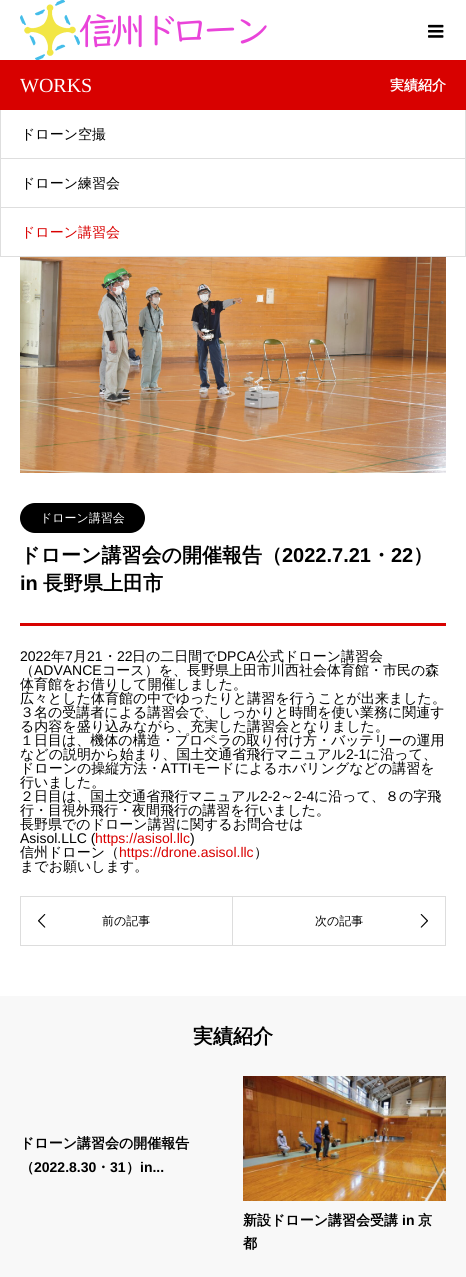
#include <cairo.h>
#include <math.h>
#include <stddef.h>

typedef struct { const char *family; double size; int italic, bold; unsigned color; } style_t;
static cairo_t *ctx;

static void ink(unsigned color) {
    cairo_set_source_rgb(ctx, (color >> 16) / 255.0, (color >> 8 & 255) / 255.0, (color & 255) / 255.0);
}

static void write(double x, double y, const char *s, const style_t *st) {
    cairo_select_font_face(ctx, st->family, st->italic ? CAIRO_FONT_SLANT_ITALIC : CAIRO_FONT_SLANT_NORMAL,
        st->bold ? CAIRO_FONT_WEIGHT_BOLD : CAIRO_FONT_WEIGHT_NORMAL);
    cairo_set_font_size(ctx, st->size);
    ink(st->color);
    cairo_move_to(ctx, x, y);
    cairo_show_text(ctx, s);
}

static void block(double x, double y, double w, double h, unsigned color) {
    ink(color);
    cairo_rectangle(ctx, x, y, w, h);
    cairo_fill(ctx);
}

static void round_path(double x, double y, double w, double h, double r) {
    cairo_new_sub_path(ctx);
    cairo_arc(ctx, x + w - r, y + h - r, r, 0, M_PI / 2);
    cairo_arc(ctx, x + r, y + h - r, r, M_PI / 2, M_PI);
    cairo_arc(ctx, x + r, y + r, r, M_PI, 1.5 * M_PI);
    cairo_arc(ctx, x + w - r, y + r, r, 1.5 * M_PI, 2 * M_PI);
    cairo_close_path(ctx);
}

static void paste(const char *path, double x, double y, double w, double h) {
    cairo_surface_t *image = cairo_image_surface_create_from_png(path);
    cairo_save(ctx);
    cairo_set_source_surface(ctx, image, x, y);
    cairo_rectangle(ctx, x, y, w, h);
    cairo_fill(ctx);
    cairo_restore(ctx);
    cairo_surface_destroy(image);
}

static const style_t s1 = {"Liberation Serif", 20, 0, 0, 0xffffff};
static const style_t s2 = {"WenQuanYi Zen Hei", 14, 0, 1, 0xffffff};
static const style_t s3 = {"WenQuanYi Zen Hei Medium", 14, 0, 0, 0x000000};
static const style_t s4 = {"WenQuanYi Zen Hei Medium", 14, 0, 0, 0xd90000};
static const style_t s5 = {"WenQuanYi Zen Hei Medium", 12, 0, 0, 0xffffff};
static const style_t s6 = {"WenQuanYi Zen Hei", 20, 0, 1, 0x000000};
static const style_t s7 = {"Liberation Sans", 20, 0, 1, 0x000000};
static const style_t s8 = {"Liberation Sans", 14, 0, 0, 0x000000};
static const style_t s9 = {"Liberation Sans", 14, 0, 0, 0xd90000};
static const style_t s10 = {"WenQuanYi Zen Hei Medium", 12, 0, 0, 0x000000};
static const style_t s11 = {"WenQuanYi Zen Hei", 14, 0, 1, 0x000000};
static const style_t s12 = {"Liberation Sans", 14, 0, 1, 0x000000};

int main(void) {
    cairo_surface_t *surface = cairo_image_surface_create(CAIRO_FORMAT_RGB24, 466, 1277);
    ctx = cairo_create(surface);
    cairo_font_options_t *options = cairo_font_options_create();
    cairo_font_options_set_hint_metrics(options, CAIRO_HINT_METRICS_OFF);
    cairo_font_options_set_hint_style(options, CAIRO_HINT_STYLE_NONE);
    cairo_set_font_options(ctx, options);
    cairo_set_miter_limit(ctx, 4);
    ink(0xffffff);
    cairo_paint(ctx);
    paste("pic1.png", 20, 0, 247, 60);
    paste("pic2.png", 428, 24, 16, 14);
    block(0, 60, 466, 50, 0xd80100);
    write(20, 92, "WORKS", &s1);
    write(390, 90, "実績紹介", &s2);
    cairo_save(ctx);
    cairo_rectangle(ctx, 0, 110, 466, 147);
    cairo_clip(ctx);
    cairo_rectangle(ctx, 0.5, 109.5, 465, 49);
    ink(0xdedede);
    cairo_set_line_width(ctx, 1);
    cairo_stroke(ctx);
    cairo_restore(ctx);
    write(21, 139, "ドローン空撮", &s3);
    cairo_rectangle(ctx, 0.5, 158.5, 465, 49);
    ink(0xdedede);
    cairo_set_line_width(ctx, 1);
    cairo_stroke(ctx);
    write(21, 188, "ドローン練習会", &s3);
    cairo_rectangle(ctx, 0.5, 207.5, 465, 49);
    ink(0xdedede);
    cairo_stroke(ctx);
    write(21, 237, "ドローン講習会", &s4);
    block(20, 623, 426, 3, 0xd80100);
    paste("pic3.png", 20, 257, 426, 216);
    ink(0x000000);
    round_path(20, 503, 125, 30, 15);
    cairo_fill(ctx);
    write(40, 522, "ドローン講習会", &s5);
    write(20, 562, "ドローン講習会の開催報告（", &s6);
    write(282, 562, "2022.7.21", &s7);
    write(371, 562, "・", &s6);
    write(391, 562, "22", &s7);
    write(413, 562, "）", &s6);
    write(20, 590, "in", &s7);
    write(43, 590, "長野県上田市", &s6);
    write(20, 661, "2022", &s8);
    write(51, 661, "年", &s3);
    write(65, 661, "7", &s8);
    write(73, 661, "月", &s3);
    write(87, 661, "21", &s8);
    write(103, 661, "・", &s3);
    write(117, 661, "22", &s8);
    write(132, 661, "日の二日間で", &s3);
    write(217, 661, "DPCA", &s8);
    write(256, 661, "公式ドローン講習会", &s3);
    write(20, 675, "（", &s3);
    write(34, 675, "ADVANCE", &s8);
    write(102, 675, "コース）を、長野県上田市川西社会体育館・市民の森", &s3);
    write(20, 689, "体育館をお借りして開催しました。", &s3);
    write(20, 703, "広々とした体育館の中でゆったりと講習を行うことが出来ました。", &s3);
    write(20, 717, "３名の受講者による講習会で、しっかりと時間を使い業務に関連す", &s3);
    write(20, 731, "る内容を盛り込みながら、充実した講習会となりました。", &s3);
    write(20, 745, "１日目は、機体の構造・プロペラの取り付け方・バッテリーの運用", &s3);
    write(20, 759, "などの説明から始まり、国土交通省飛行マニュアル", &s3);
    write(346, 759, "2-1", &s8);
    write(366, 759, "に沿って、", &s3);
    write(20, 773, "ドローンの操縦方法・", &s3);
    write(161, 773, "ATTI", &s8);
    write(192, 773, "モードによるホバリングなどの講習を", &s3);
    write(20, 787, "行いました。", &s3);
    write(20, 801, "２日目は、国土交通省飛行マニュアル", &s3);
    write(260, 801, "2-2", &s8);
    write(280, 801, "～", &s3);
    write(294, 801, "2-4", &s8);
    write(314, 801, "に沿って、８の字飛", &s3);
    write(20, 815, "行・目視外飛行・夜間飛行の講習を行いました。", &s3);
    write(20, 829, "長野県でのドローン講習に関するお問合せは", &s3);
    write(20, 843, "Asisol.LLC (", &s8);
    write(95, 843, "https://asisol.llc", &s9);
    write(190, 843, ")", &s8);
    write(20, 857, "信州ドローン（", &s3);
    write(119, 857, "https://drone.asisol.llc", &s9);
    write(254, 857, "）", &s3);
    write(20, 871, "までお願いします。", &s3);
    cairo_rectangle(ctx, 20.5, 896.5, 212, 49);
    ink(0xdddddd);
    cairo_stroke(ctx);
    paste("pic4.png", 38, 914, 8, 14);
    write(102, 925, "前の記事", &s10);
    block(233, 896, 213, 1, 0xdddddd);
    block(445, 896, 1, 50, 0xdddddd);
    block(233, 945, 213, 1, 0xdddddd);
    write(315, 925, "次の記事", &s10);
    paste("pic5.png", 420, 914, 8, 14);
    block(0, 996, 466, 281, 0xf8f8f8);
    write(193, 1043, "実績紹介", &s6);
    write(20, 1148, "ドローン講習会の開催報告", &s11);
    write(20, 1172, "（", &s11);
    write(34, 1172, "2022.8.30", &s12);
    write(96, 1172, "・", &s11);
    write(110, 1172, "31", &s12);
    write(126, 1172, "）", &s11);
    write(140, 1172, "in...", &s12);
    paste("pic6.png", 243, 1076, 203, 125);
    write(243, 1225, "新設ドローン講習会受講", &s11);
    write(402, 1225, "in", &s12);
    write(418, 1225, "京", &s11);
    write(243, 1248, "都", &s11);
    cairo_surface_write_to_png(surface, "screenshot.png");
    cairo_font_options_destroy(options);
    cairo_destroy(ctx);
    cairo_surface_destroy(surface);
    return 0;
}
